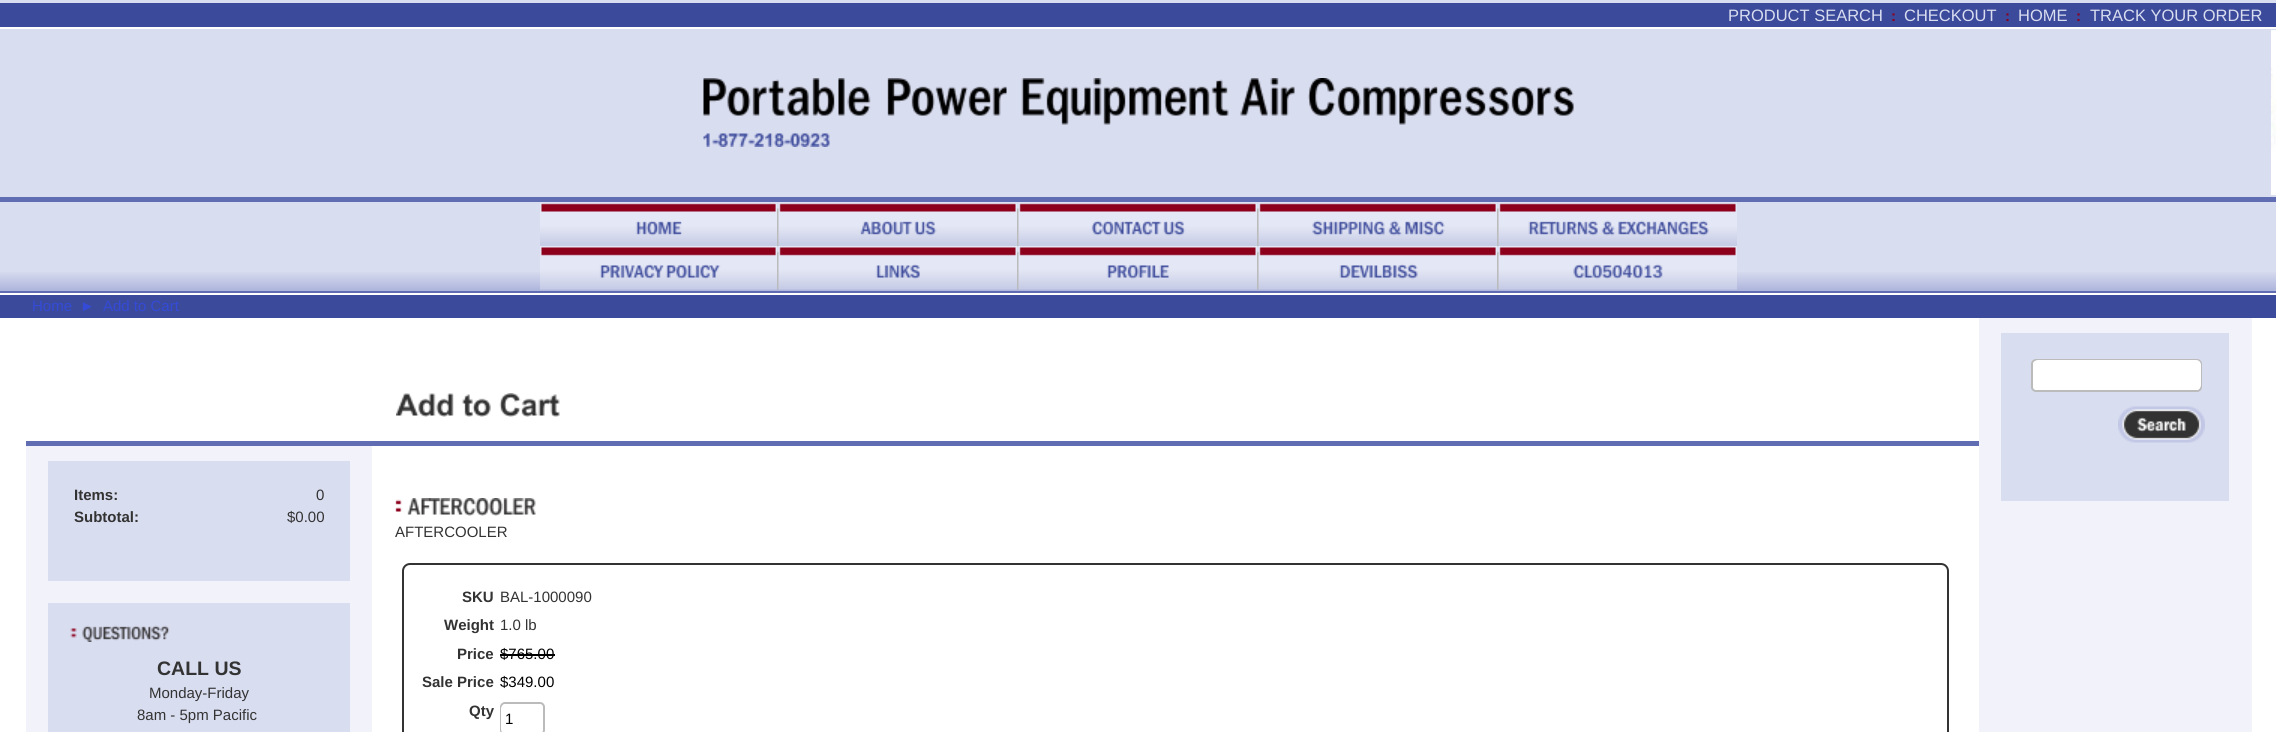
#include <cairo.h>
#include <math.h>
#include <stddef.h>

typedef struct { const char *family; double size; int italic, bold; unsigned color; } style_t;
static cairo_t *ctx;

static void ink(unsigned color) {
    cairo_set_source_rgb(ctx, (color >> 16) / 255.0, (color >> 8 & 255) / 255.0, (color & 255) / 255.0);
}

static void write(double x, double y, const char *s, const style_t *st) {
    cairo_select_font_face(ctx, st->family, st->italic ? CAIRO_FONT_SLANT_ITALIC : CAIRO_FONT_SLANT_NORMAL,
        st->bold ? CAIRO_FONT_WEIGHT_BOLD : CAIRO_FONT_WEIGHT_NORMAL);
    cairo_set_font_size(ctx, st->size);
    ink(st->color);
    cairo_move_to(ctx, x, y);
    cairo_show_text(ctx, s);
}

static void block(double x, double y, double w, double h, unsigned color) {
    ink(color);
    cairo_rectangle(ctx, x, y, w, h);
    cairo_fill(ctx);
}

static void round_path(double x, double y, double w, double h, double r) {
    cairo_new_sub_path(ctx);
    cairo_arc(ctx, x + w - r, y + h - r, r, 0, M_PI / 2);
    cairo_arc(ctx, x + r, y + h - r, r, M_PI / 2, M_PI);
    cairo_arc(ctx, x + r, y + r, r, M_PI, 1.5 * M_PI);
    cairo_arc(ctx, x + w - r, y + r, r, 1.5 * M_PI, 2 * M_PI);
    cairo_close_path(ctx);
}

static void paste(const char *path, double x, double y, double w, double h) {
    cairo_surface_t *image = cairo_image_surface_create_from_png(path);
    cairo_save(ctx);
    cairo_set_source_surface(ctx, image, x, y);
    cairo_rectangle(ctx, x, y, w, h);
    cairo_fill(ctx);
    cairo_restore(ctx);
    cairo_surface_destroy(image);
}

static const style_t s1 = {"Liberation Sans", 16.5, 0, 0, 0xd9ddf0};
static const style_t s2 = {"Liberation Sans", 15, 0, 1, 0x8c001c};
static const style_t s3 = {"Liberation Sans", 15, 0, 0, 0x334bd6};
static const style_t s4 = {"Liberation Sans", 15, 0, 1, 0x333333};
static const style_t s5 = {"Liberation Sans", 15, 0, 0, 0x333333};
static const style_t s6 = {"Liberation Sans", 19.5, 0, 1, 0x333333};
static const style_t s7 = {"Liberation Sans", 15, 0, 0, 0x000000};

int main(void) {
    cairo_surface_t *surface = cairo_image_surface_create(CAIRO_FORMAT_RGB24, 2276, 732);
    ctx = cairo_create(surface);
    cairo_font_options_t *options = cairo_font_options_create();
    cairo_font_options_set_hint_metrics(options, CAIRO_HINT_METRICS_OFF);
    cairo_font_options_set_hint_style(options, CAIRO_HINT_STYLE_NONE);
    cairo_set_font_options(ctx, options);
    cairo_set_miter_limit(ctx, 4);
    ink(0xd9ddf0);
    cairo_paint(ctx);
    block(0, 3, 2276, 24, 0x3c4a9b);
    block(0, 27, 2276, 2, 0xffffff);
    write(1728, 21, "PRODUCT SEARCH", &s1);
    write(1891, 21, ":", &s2);
    write(1904, 21, "CHECKOUT", &s1);
    write(2005, 21, ":", &s2);
    write(2018, 21, "HOME", &s1);
    write(2076, 21, ":", &s2);
    write(2090, 21, "TRACK YOUR ORDER", &s1);
    paste("pic1.png", 2271, 30, 5, 165);
    block(0, 197, 2276, 5, 0x616db3);
    paste("pic2.png", 703, 78, 871, 69);
    paste("pic3.png", 0, 272, 2276, 19);
    block(0, 291, 2276, 2, 0x616db3);
    paste("pic4.png", 540, 202, 237, 44);
    paste("pic5.png", 777, 202, 240, 44);
    paste("pic6.png", 1017, 202, 240, 44);
    paste("pic7.png", 1257, 202, 240, 44);
    paste("pic8.png", 1497, 202, 240, 44);
    paste("pic9.png", 540, 246, 237, 44);
    paste("pic10.png", 777, 246, 240, 44);
    paste("pic11.png", 1017, 246, 240, 44);
    paste("pic12.png", 1257, 246, 240, 44);
    paste("pic13.png", 1497, 246, 240, 44);
    block(0, 295, 2276, 23, 0x3c4a9b);
    block(0, 293, 2276, 2, 0xffffff);
    write(32, 311, "Home", &s3);
    write(80, 311, "►", &s3);
    write(103, 311, "Add to Cart", &s3);
    block(0, 318, 2276, 128, 0xffffff);
    paste("pic14.png", 396, 393, 164, 24);
    block(1979, 318, 273, 414, 0xf2f3fa);
    block(26, 441, 1953, 5, 0x616db3);
    block(2001, 333, 228, 168, 0xd9ddf0);
    ink(0xffffff);
    round_path(2032, 360, 169, 31, 4);
    cairo_fill_preserve(ctx);
    ink(0xbbbbbb);
    cairo_stroke(ctx);
    ink(0xffffff);
    round_path(2033, 360, 168, 30, 5);
    cairo_fill(ctx);
    paste("pic15.png", 2118, 406, 87, 37);
    block(0, 446, 26, 286, 0xffffff);
    block(26, 446, 346, 286, 0xf2f3fa);
    block(48, 461, 302, 120, 0xd9ddf0);
    write(74, 500, "Items:", &s4);
    write(316, 500, "0", &s5);
    write(74, 522, "Subtotal:", &s4);
    write(287, 522, "$0.00", &s5);
    block(48, 603, 302, 129, 0xd9ddf0);
    paste("pic16.png", 70, 625, 100, 17);
    write(157, 675, "CALL US", &s6);
    write(149, 698, "Monday-Friday", &s5);
    write(137, 720, "8am - 5pm Pacific", &s5);
    block(372, 446, 1607, 286, 0xffffff);
    paste("pic17.png", 395, 498, 141, 18);
    write(395, 537, "AFTERCOOLER", &s5);
    round_path(403, 564, 1545, 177, 7);
    cairo_stroke(ctx);
    write(462, 602, "SKU", &s4);
    write(500, 602, "BAL-1000090", &s5);
    write(444, 630, "Weight", &s4);
    write(500, 630, "1.0 lb", &s5);
    write(457, 659, "Price", &s4);
    write(500, 659, "$765.00", &s7);
    block(500, 654, 55, 2, 0x000000);
    write(422, 687, "Sale Price", &s4);
    write(500, 687, "$349.00", &s7);
    write(469, 716, "Qty", &s4);
    round_path(501, 703, 43, 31, 4);
    ink(0xbbbbbb);
    cairo_stroke(ctx);
    ink(0xffffff);
    round_path(501, 704, 42, 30, 5);
    cairo_fill(ctx);
    write(505, 724, "1", &s7);
    block(2252, 446, 24, 286, 0xffffff);
    cairo_surface_write_to_png(surface, "screenshot.png");
    cairo_font_options_destroy(options);
    cairo_destroy(ctx);
    cairo_surface_destroy(surface);
    return 0;
}
